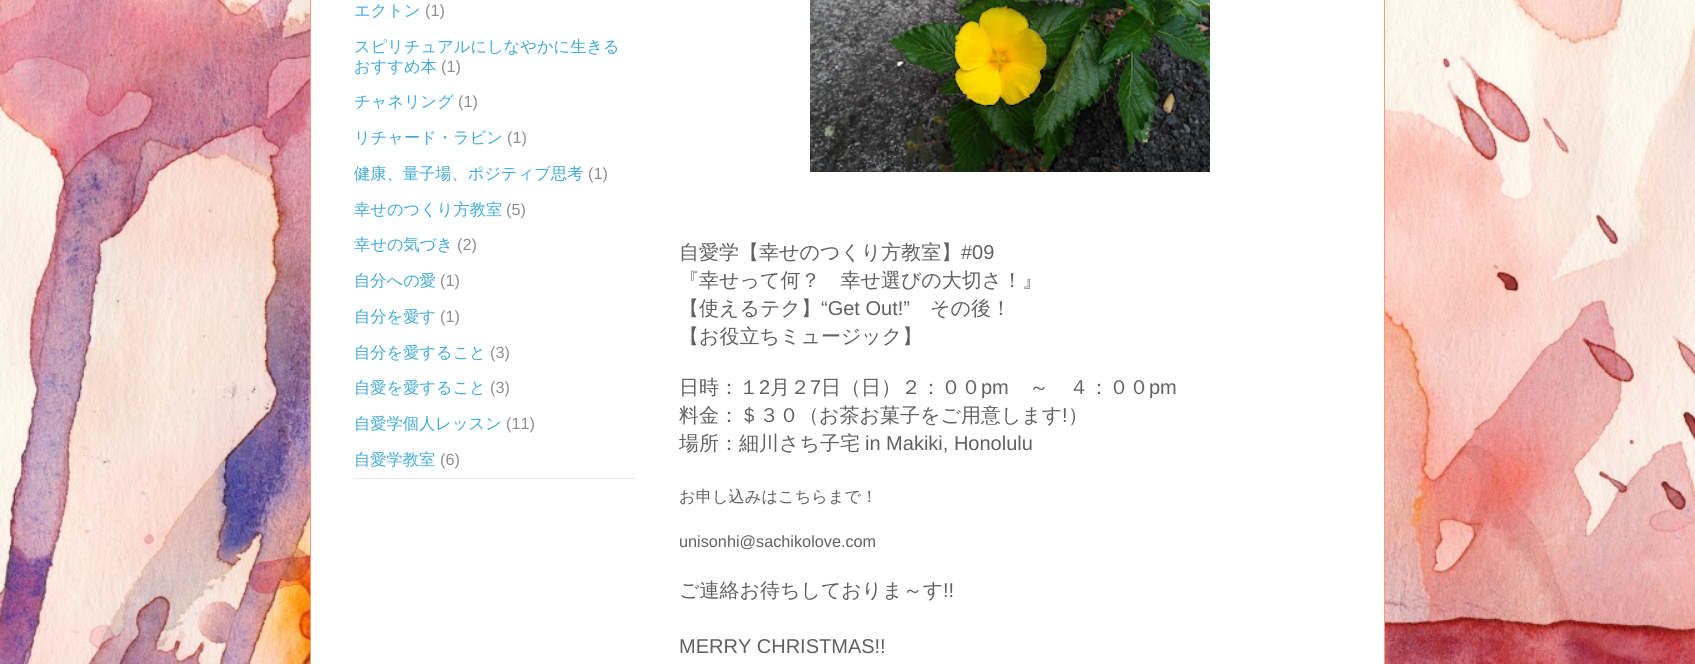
#include <cairo.h>
#include <math.h>
#include <stddef.h>

typedef struct { const char *family; double size; int italic, bold; unsigned color; } style_t;
static cairo_t *ctx;

static void ink(unsigned color) {
    cairo_set_source_rgb(ctx, (color >> 16) / 255.0, (color >> 8 & 255) / 255.0, (color & 255) / 255.0);
}

static void write(double x, double y, const char *s, const style_t *st) {
    cairo_select_font_face(ctx, st->family, st->italic ? CAIRO_FONT_SLANT_ITALIC : CAIRO_FONT_SLANT_NORMAL,
        st->bold ? CAIRO_FONT_WEIGHT_BOLD : CAIRO_FONT_WEIGHT_NORMAL);
    cairo_set_font_size(ctx, st->size);
    ink(st->color);
    cairo_move_to(ctx, x, y);
    cairo_show_text(ctx, s);
}

static void block(double x, double y, double w, double h, unsigned color) {
    ink(color);
    cairo_rectangle(ctx, x, y, w, h);
    cairo_fill(ctx);
}

static void paste(const char *path, double x, double y, double w, double h) {
    cairo_surface_t *image = cairo_image_surface_create_from_png(path);
    cairo_save(ctx);
    cairo_set_source_surface(ctx, image, x, y);
    cairo_rectangle(ctx, x, y, w, h);
    cairo_fill(ctx);
    cairo_restore(ctx);
    cairo_surface_destroy(image);
}

static const style_t s1 = {"WenQuanYi Zen Hei Medium", 16.25, 0, 0, 0x41aad9};
static const style_t s2 = {"Liberation Sans", 16.25, 0, 0, 0x8e8e8e};
static const style_t s3 = {"WenQuanYi Zen Hei Medium", 20, 0, 0, 0x606060};
static const style_t s4 = {"Liberation Sans", 20, 0, 0, 0x606060};
static const style_t s5 = {"WenQuanYi Zen Hei Medium", 16.25, 0, 0, 0x606060};
static const style_t s6 = {"Liberation Sans", 16.25, 0, 0, 0x606060};

int main(void) {
    cairo_surface_t *surface = cairo_image_surface_create(CAIRO_FORMAT_RGB24, 1695, 664);
    ctx = cairo_create(surface);
    cairo_font_options_t *options = cairo_font_options_create();
    cairo_font_options_set_hint_metrics(options, CAIRO_HINT_METRICS_OFF);
    cairo_font_options_set_hint_style(options, CAIRO_HINT_STYLE_NONE);
    cairo_set_font_options(ctx, options);
    cairo_set_miter_limit(ctx, 4);
    ink(0xffffff);
    cairo_paint(ctx);
    paste("pic1.png", 0, 0, 1695, 664);
    block(311, 0, 1073, 664, 0xffffff);
    block(1384, 0, 1, 664, 0xfb9b79);
    block(310, 0, 1, 664, 0xfb9b79);
    block(354, 478, 281, 1, 0xe7e7e7);
    write(354, 16, "エクトン", &s1);
    write(425, 16, "(1)", &s2);
    write(354, 52, "スピリチュアルにしなやかに生きる", &s1);
    write(354, 72, "おすすめ本", &s1);
    write(441, 72, "(1)", &s2);
    write(354, 107, "チャネリング", &s1);
    write(458, 107, "(1)", &s2);
    write(354, 143, "リチャード・ラビン", &s1);
    write(507, 143, "(1)", &s2);
    write(354, 179, "健康、量子場、ポジティブ思考", &s1);
    write(588, 179, "(1)", &s2);
    write(354, 215, "幸せのつくり方教室", &s1);
    write(506, 215, "(5)", &s2);
    write(354, 250, "幸せの気づき", &s1);
    write(457, 250, "(2)", &s2);
    write(354, 286, "自分への愛", &s1);
    write(440, 286, "(1)", &s2);
    write(354, 322, "自分を愛す", &s1);
    write(440, 322, "(1)", &s2);
    write(354, 358, "自分を愛すること", &s1);
    write(490, 358, "(3)", &s2);
    write(354, 393, "自愛を愛すること", &s1);
    write(490, 393, "(3)", &s2);
    write(354, 429, "自愛学個人レッスン", &s1);
    write(506, 429, "(11)", &s2);
    write(354, 465, "自愛学教室", &s1);
    write(440, 465, "(6)", &s2);
    paste("pic2.png", 810, 0, 400, 172);
    write(679, 259, "自愛学【幸せのつくり方教室】", &s3);
    write(961, 259, "#09", &s4);
    write(679, 287, "『幸せって何？　幸せ選びの大切さ！』", &s3);
    write(679, 315, "【使えるテク】", &s3);
    write(821, 315, "“Get Out!”", &s4);
    write(930, 315, "その後！", &s3);
    write(679, 343, "【お役立ちミュージック】", &s3);
    write(679, 394, "日時：１", &s3);
    write(759, 394, "2", &s4);
    write(770, 394, "月２", &s3);
    write(810, 394, "7", &s4);
    write(821, 394, "日（日）２：００", &s3);
    write(981, 394, "pm", &s4);
    write(1029, 394, "～　４：００", &s3);
    write(1149, 394, "pm", &s4);
    write(679, 422, "料金：＄３０（お茶お菓子をご用意します", &s3);
    write(1062, 422, "!", &s4);
    write(1068, 422, "）", &s3);
    write(679, 450, "場所：細川さち子宅", &s3);
    write(865, 450, "in Makiki, Honolulu", &s4);
    write(679, 502, "お申し込みはこちらまで！", &s5);
    write(679, 547, "unisonhi@sachikolove.com", &s6);
    write(679, 597, "ご連絡お待ちしておりま～す", &s3);
    write(943, 597, "!!", &s4);
    write(679, 653, "MERRY CHRISTMAS!!", &s4);
    cairo_surface_write_to_png(surface, "screenshot.png");
    cairo_font_options_destroy(options);
    cairo_destroy(ctx);
    cairo_surface_destroy(surface);
    return 0;
}
